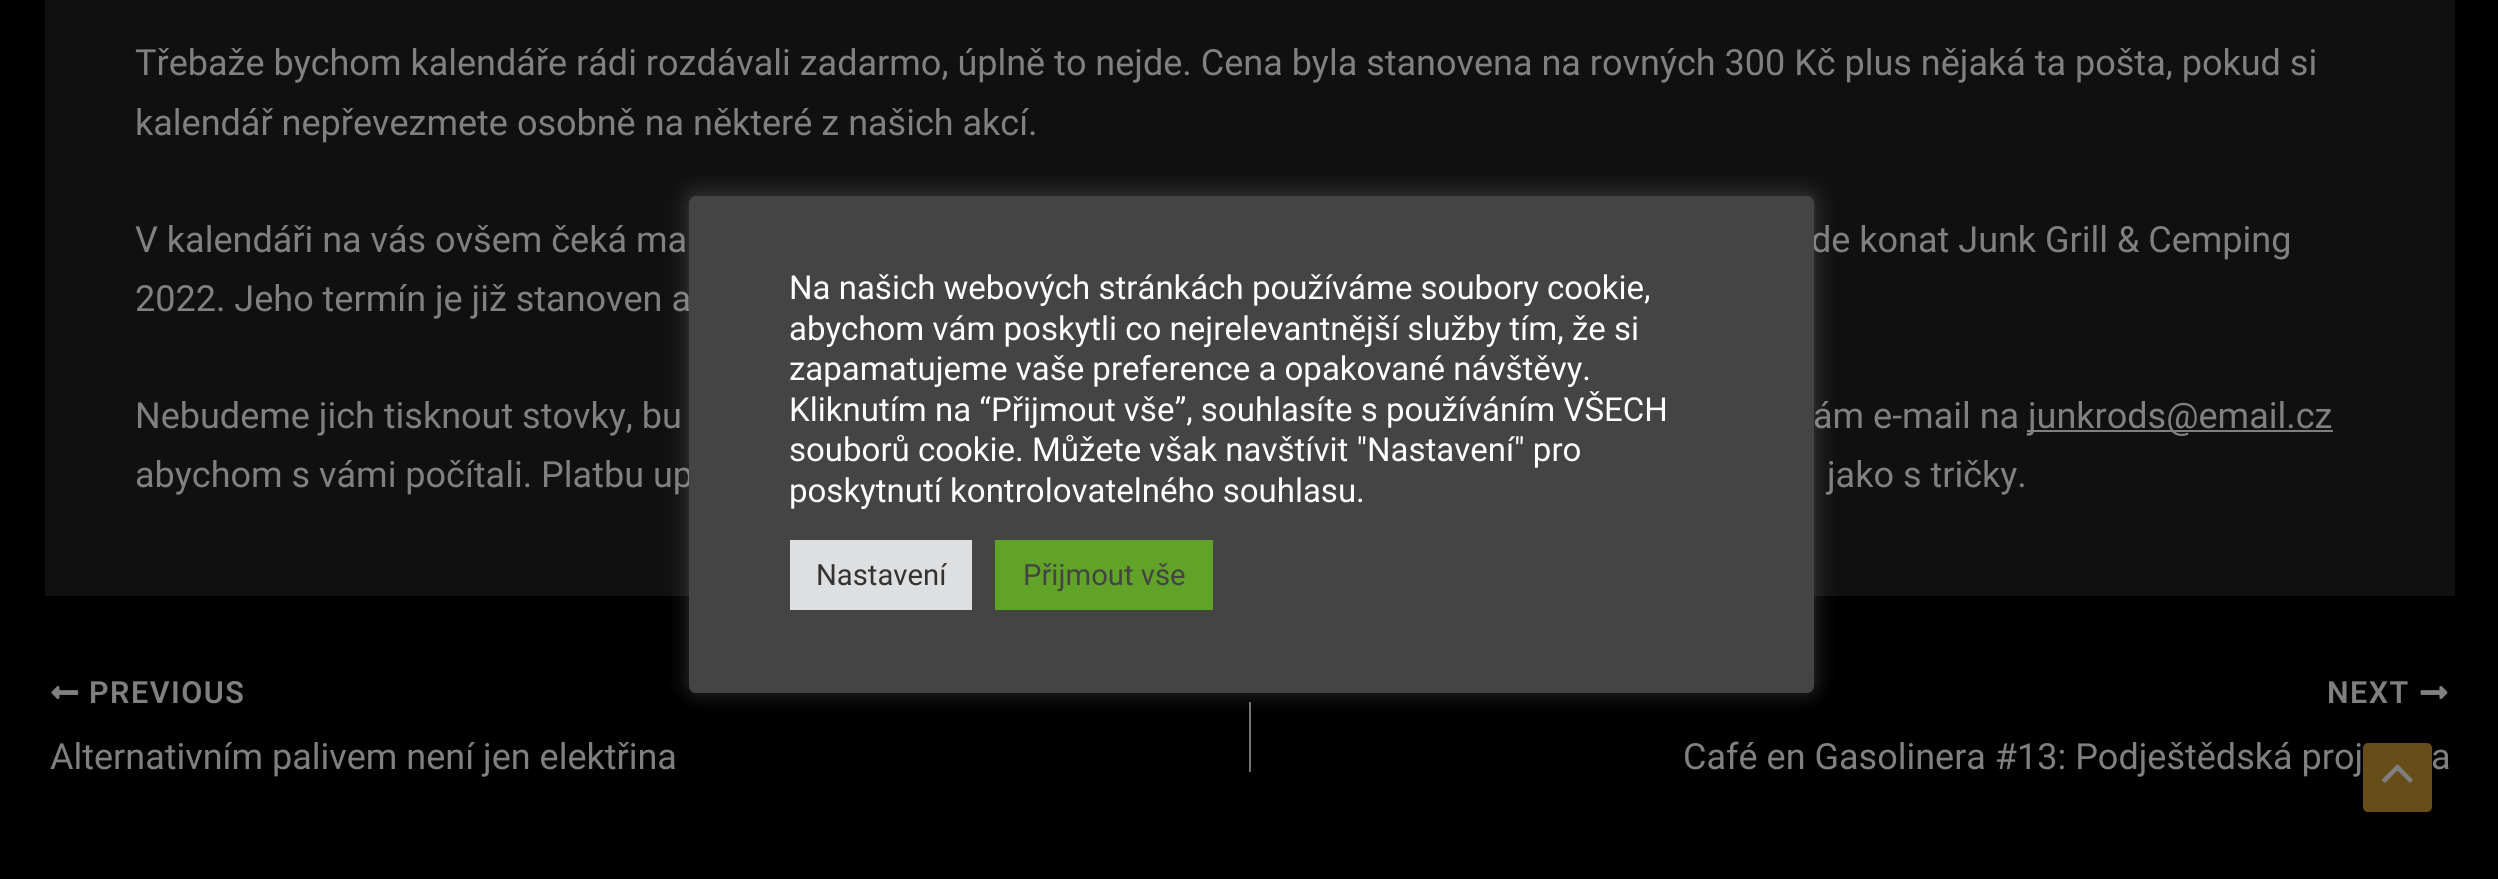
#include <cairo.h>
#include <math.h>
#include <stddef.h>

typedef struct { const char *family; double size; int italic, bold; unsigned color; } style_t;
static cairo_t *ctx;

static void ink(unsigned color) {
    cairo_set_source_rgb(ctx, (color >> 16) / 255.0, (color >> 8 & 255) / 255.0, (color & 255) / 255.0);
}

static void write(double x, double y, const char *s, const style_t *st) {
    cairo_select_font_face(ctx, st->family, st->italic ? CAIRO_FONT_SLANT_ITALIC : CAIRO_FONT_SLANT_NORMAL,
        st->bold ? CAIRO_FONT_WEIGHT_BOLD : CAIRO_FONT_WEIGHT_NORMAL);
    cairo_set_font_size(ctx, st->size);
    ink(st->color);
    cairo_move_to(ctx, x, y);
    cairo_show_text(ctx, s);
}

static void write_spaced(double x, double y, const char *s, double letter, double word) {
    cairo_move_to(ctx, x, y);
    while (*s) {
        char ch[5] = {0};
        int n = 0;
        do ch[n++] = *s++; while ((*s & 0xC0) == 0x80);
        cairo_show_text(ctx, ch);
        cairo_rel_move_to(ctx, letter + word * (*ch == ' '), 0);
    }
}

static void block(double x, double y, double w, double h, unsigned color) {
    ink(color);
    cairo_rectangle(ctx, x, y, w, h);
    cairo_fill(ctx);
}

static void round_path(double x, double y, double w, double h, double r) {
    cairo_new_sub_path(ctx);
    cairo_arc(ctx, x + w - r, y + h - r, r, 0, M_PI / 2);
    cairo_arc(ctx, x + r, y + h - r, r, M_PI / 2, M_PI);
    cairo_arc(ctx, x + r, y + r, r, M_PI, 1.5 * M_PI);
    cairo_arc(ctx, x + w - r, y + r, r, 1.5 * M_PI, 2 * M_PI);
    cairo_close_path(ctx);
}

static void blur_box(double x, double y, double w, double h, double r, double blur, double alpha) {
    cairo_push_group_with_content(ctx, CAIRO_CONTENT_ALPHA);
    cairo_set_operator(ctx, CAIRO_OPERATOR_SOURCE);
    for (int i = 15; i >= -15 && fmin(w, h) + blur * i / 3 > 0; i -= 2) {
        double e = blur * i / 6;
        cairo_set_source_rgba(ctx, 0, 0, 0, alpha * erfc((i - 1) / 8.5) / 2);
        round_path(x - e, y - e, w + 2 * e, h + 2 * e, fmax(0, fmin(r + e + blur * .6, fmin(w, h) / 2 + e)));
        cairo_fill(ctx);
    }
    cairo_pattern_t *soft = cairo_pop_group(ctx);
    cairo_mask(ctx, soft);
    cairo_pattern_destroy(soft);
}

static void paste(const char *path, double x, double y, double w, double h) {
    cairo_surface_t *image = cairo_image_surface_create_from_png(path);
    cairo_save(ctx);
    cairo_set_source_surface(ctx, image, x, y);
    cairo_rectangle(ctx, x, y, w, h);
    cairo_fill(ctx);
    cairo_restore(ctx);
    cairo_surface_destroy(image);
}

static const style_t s1 = {"Roboto", 36, 0, 0, 0x808080};
static const style_t s2 = {"Roboto", 33, 0, 0, 0xffffff};
static const style_t s3 = {"Roboto", 29.25, 0, 0, 0x333333};
static const style_t s4 = {"Roboto", 29.25, 0, 0, 0x444444};

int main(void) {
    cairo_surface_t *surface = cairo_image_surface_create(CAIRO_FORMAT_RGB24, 2498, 879);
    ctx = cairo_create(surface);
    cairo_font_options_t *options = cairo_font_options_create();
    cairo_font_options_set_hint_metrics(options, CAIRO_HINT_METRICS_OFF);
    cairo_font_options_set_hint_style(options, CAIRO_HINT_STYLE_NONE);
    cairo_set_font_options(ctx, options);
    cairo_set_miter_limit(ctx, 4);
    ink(0x000000);
    cairo_paint(ctx);
    block(45, 0, 2410, 596, 0x101010);
    write(135, 75, "Třebaže bychom kalendáře rádi rozdávali zadarmo, úplně to nejde. Cena byla stanovena na rovných 300 Kč plus nějaká ta pošta, pokud si", &s1);
    write(135, 135, "kalendář nepřevezmete osobně na některé z našich akcí.", &s1);
    write(135, 252, "V kalendáři na vás ovšem čeká ma", &s1);
    write(1811, 252, "de konat Junk Grill & Cemping", &s1);
    write(135, 311, "2022. Jeho termín je již stanoven a", &s1);
    write(135, 428, "Nebudeme jich tisknout stovky, bu", &s1);
    write(1813, 428, "ám e-mail na", &s1);
    block(2027, 430, 306, 2, 0x808080);
    write(2028, 428, "junkrods@email.cz", &s1);
    write(135, 487, "abychom s vámi počítali. Platbu up", &s1);
    write(1827, 487, "jako s tričky.", &s1);
    paste("pic1.png", 51, 686, 28, 14);
    cairo_select_font_face(ctx, "Roboto SemiBold", CAIRO_FONT_SLANT_NORMAL, CAIRO_FONT_WEIGHT_NORMAL);
    cairo_set_font_size(ctx, 30.5);
    write_spaced(89, 703, "PREVIOUS", 1.5, 0);
    write(50, 769, "Alternativním palivem není jen elektřina", &s1);
    block(1249, 702, 2, 70, 0x717477);
    cairo_select_font_face(ctx, "Roboto SemiBold", CAIRO_FONT_SLANT_NORMAL, CAIRO_FONT_WEIGHT_NORMAL);
    cairo_set_font_size(ctx, 30.5);
    ink(0x808080);
    write_spaced(2327, 703, "NEXT", 1.5, 0);
    paste("pic2.png", 2420, 686, 28, 14);
    write(1683, 769, "Café en Gasolinera #13: Podještědská proj", &s1);
    write(2431, 769, "a", &s1);
    ink(0xacabab);
    blur_box(689, 194, 1125, 497, 7, 11, 0.3);
    ink(0x444444);
    round_path(689, 196, 1125, 497, 7);
    cairo_fill(ctx);
    write(789, 299, "Na našich webových stránkách používáme soubory cookie,", &s2);
    write(789, 340, "abychom vám poskytli co nejrelevantnější služby tím, že si", &s2);
    write(789, 380, "zapamatujeme vaše preference a opakované návštěvy.", &s2);
    write(789, 421, "Kliknutím na “Přijmout vše”, souhlasíte s používáním VŠECH", &s2);
    write(789, 461, "souborů cookie. Můžete však navštívit \"Nastavení\" pro", &s2);
    write(789, 502, "poskytnutí kontrolovatelného souhlasu.", &s2);
    block(790, 540, 182, 70, 0xdedfe0);
    write(816, 585, "Nastavení", &s3);
    block(995, 540, 218, 70, 0x61a229);
    write(1023, 585, "Přijmout vše", &s4);
    ink(0x664d1a);
    round_path(2363, 743, 69, 69, 5);
    cairo_fill(ctx);
    ink(0x808080);
    cairo_new_path(ctx);
    cairo_move_to(ctx, 2413, 780);
    cairo_line_to(ctx, 2397.5, 764);
    cairo_line_to(ctx, 2381.5, 780);
    cairo_line_to(ctx, 2385, 783);
    cairo_line_to(ctx, 2397.5, 770.5);
    cairo_line_to(ctx, 2410, 783);
    cairo_close_path(ctx);
    cairo_fill(ctx);
    cairo_surface_write_to_png(surface, "screenshot.png");
    cairo_font_options_destroy(options);
    cairo_destroy(ctx);
    cairo_surface_destroy(surface);
    return 0;
}
